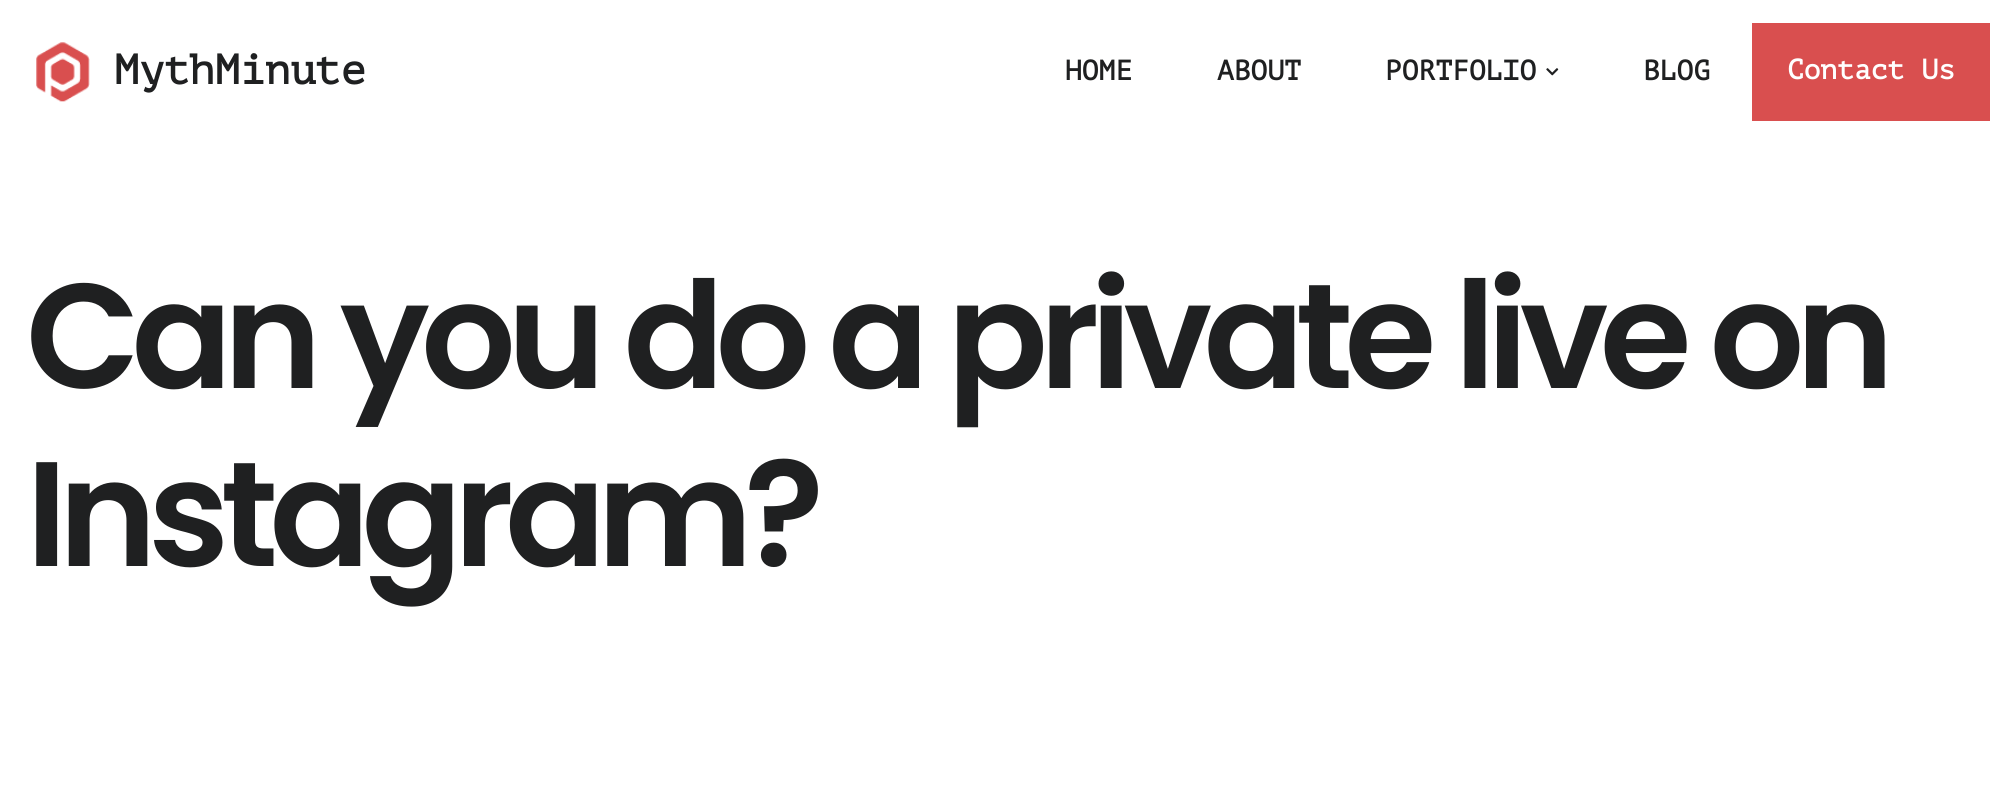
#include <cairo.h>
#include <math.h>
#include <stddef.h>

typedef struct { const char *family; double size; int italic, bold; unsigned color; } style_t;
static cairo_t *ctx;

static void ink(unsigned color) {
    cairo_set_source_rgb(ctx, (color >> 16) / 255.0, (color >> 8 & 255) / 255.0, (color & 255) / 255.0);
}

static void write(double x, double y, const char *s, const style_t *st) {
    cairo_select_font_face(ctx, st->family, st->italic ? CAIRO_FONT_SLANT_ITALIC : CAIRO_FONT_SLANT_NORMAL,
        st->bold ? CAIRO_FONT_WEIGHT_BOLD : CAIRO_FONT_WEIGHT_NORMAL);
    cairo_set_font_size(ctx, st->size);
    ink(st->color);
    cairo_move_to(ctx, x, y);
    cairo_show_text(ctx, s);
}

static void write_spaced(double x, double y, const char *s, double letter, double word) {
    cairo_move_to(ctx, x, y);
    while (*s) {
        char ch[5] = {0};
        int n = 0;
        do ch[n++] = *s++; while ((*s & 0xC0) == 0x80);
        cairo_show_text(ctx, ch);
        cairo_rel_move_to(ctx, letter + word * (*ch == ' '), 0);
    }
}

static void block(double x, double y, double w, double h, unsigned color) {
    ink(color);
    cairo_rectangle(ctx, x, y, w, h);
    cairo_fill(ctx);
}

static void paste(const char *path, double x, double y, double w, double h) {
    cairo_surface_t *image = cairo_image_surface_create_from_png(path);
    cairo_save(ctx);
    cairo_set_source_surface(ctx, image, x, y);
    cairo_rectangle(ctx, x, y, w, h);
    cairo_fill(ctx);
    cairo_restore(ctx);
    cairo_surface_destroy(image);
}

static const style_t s1 = {"PT Mono", 42, 0, 1, 0x1f2021};
static const style_t s2 = {"PT Mono", 28, 0, 1, 0x1f2021};
static const style_t s3 = {"PT Mono", 28, 0, 1, 0xffffff};

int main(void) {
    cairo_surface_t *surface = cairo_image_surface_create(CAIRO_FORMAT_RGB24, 2016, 792);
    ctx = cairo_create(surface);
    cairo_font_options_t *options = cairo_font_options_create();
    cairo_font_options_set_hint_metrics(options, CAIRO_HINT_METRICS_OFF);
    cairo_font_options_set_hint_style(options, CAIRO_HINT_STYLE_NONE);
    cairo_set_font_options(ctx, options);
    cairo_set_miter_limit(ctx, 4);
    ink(0xffffff);
    cairo_paint(ctx);
    paste("pic1.png", 36, 42, 54, 60);
    write(114, 84, "MythMinute", &s1);
    write(1065, 80, "HOME", &s2);
    write(1217, 80, "ABOUT", &s2);
    write(1385, 80, "PORTFOLIO", &s2);
    paste("pic2.png", 1546, 68, 13, 8);
    write(1643, 80, "BLOG", &s2);
    block(1752, 23, 238, 98, 0xd94f4f);
    write(1787, 79, "Contact Us", &s3);
    cairo_select_font_face(ctx, "Poppins SemiBold", CAIRO_FONT_SLANT_NORMAL, CAIRO_FONT_WEIGHT_NORMAL);
    cairo_set_font_size(ctx, 148.75);
    ink(0x1f2021);
    write_spaced(26, 388, "Can you do a private live on", -8.75, 0);
    write_spaced(26, 566, "Instagram?", -8.75, 0);
    cairo_surface_write_to_png(surface, "screenshot.png");
    cairo_font_options_destroy(options);
    cairo_destroy(ctx);
    cairo_surface_destroy(surface);
    return 0;
}
